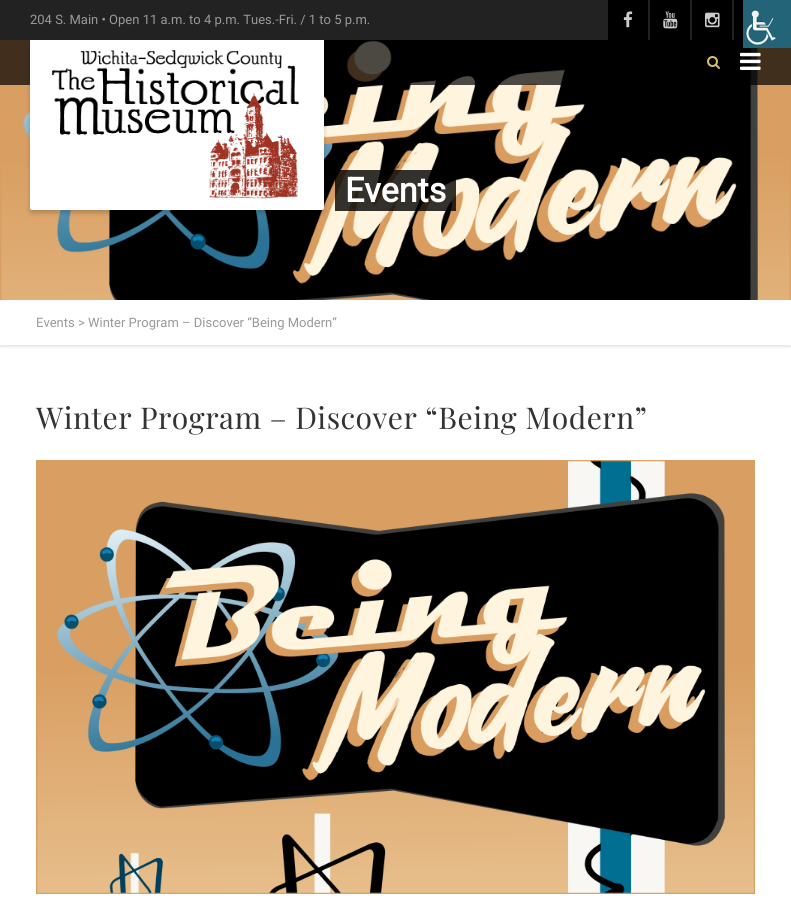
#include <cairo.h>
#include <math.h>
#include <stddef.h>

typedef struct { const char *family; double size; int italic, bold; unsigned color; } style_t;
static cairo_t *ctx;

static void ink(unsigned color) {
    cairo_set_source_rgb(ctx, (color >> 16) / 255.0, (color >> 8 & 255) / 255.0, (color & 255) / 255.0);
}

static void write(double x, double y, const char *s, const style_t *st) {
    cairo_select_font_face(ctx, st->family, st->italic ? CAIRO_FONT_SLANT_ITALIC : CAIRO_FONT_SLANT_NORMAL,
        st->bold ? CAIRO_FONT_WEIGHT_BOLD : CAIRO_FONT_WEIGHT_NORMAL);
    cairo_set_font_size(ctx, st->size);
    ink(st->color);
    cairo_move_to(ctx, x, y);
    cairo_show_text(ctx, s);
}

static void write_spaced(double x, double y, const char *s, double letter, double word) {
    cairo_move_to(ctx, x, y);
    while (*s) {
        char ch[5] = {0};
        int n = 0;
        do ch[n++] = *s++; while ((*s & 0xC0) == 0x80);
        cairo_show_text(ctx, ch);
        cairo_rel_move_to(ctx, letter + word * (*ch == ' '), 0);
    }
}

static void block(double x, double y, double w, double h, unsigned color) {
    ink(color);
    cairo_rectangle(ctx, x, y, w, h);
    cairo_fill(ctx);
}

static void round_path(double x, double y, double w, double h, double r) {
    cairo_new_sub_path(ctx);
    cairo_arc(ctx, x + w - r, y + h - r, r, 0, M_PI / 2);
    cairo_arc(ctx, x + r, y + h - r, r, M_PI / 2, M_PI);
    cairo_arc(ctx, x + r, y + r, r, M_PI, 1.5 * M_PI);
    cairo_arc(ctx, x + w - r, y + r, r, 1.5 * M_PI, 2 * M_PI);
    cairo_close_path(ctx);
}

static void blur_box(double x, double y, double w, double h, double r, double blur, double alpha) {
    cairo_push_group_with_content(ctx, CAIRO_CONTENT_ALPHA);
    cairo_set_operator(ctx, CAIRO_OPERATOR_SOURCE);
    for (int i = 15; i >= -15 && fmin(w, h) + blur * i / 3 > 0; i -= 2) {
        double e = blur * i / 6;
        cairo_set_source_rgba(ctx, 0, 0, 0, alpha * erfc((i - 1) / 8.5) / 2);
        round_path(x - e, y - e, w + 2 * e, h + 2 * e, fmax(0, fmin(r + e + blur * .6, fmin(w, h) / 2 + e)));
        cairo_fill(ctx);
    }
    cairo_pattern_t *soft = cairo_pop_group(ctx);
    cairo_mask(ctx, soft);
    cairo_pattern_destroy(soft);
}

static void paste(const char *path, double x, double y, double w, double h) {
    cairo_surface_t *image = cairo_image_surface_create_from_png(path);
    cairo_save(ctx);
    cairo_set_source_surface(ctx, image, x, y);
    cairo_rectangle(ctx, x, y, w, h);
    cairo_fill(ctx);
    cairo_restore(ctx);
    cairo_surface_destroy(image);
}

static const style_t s1 = {"Roboto", 13, 0, 0, 0x999999};
static const style_t s2 = {"Roboto", 34, 0, 1, 0xffffff};

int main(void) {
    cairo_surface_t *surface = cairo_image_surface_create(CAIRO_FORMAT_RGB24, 791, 906);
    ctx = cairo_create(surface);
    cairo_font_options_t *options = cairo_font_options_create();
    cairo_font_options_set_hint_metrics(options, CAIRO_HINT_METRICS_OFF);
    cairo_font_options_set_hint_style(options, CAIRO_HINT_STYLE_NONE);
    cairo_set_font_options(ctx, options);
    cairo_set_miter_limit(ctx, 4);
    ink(0xffffff);
    cairo_paint(ctx);
    block(0, 0, 734, 40, 0x222222);
    write(30, 24, "204 S. Main • Open 11 a.m. to 4 p.m. Tues.-Fri. / 1 to 5 p.m.", &s1);
    block(608, 0, 40, 40, 0x000000);
    paste("pic1.png", 623, 11, 10, 17);
    block(650, 0, 40, 40, 0x000000);
    paste("pic2.png", 663, 11, 15, 18);
    block(692, 0, 40, 40, 0x000000);
    paste("pic3.png", 705, 12, 15, 16);
    block(734, 0, 9, 40, 0x000000);
    cairo_save(ctx);
    cairo_rectangle(ctx, 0, 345, 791, 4);
    cairo_clip(ctx);
    ink(0xe6e6e6);
    blur_box(0, 302, 791, 45, 0, 1, 1);
    cairo_restore(ctx);
    paste("pic7.png", 0, 40, 791, 260);
    cairo_set_source_rgba(ctx, 0, 0, 0, 0.7);
    cairo_rectangle(ctx, 0, 40, 791, 45);
    cairo_fill(ctx);
    ink(0x000000);
    blur_box(30, 43, 294, 170, 2, 2.5, 0.2);
    ink(0xffffff);
    cairo_new_path(ctx);
    cairo_move_to(ctx, 30, 40);
    cairo_line_to(ctx, 324, 40);
    cairo_line_to(ctx, 324, 208);
    cairo_curve_to(ctx, 324, 209, 323, 210, 322, 210);
    cairo_line_to(ctx, 32, 210);
    cairo_curve_to(ctx, 31, 210, 30, 209, 30, 208);
    cairo_close_path(ctx);
    cairo_fill(ctx);
    paste("pic4.png", 52, 50, 250, 150);
    paste("pic5.png", 707, 56, 13, 13);
    paste("pic6.png", 740, 52, 21, 18);
    cairo_set_source_rgba(ctx, 0, 0, 0, 0.8);
    cairo_rectangle(ctx, 335, 170, 121, 41);
    cairo_fill(ctx);
    write(345, 202, "Events", &s2);
    write(36, 327, "Events > Winter Program – Discover “Being Modern”", &s1);
    cairo_select_font_face(ctx, "Playfair Display", CAIRO_FONT_SLANT_NORMAL, CAIRO_FONT_WEIGHT_NORMAL);
    cairo_set_font_size(ctx, 30);
    ink(0x333333);
    write_spaced(36, 429, "Winter Program – Discover “Being Modern”", 0.5, 0);
    paste("pic8.png", 36, 460, 719, 434);
    paste("pic9.png", 743, 0, 48, 48);
    cairo_surface_write_to_png(surface, "screenshot.png");
    cairo_font_options_destroy(options);
    cairo_destroy(ctx);
    cairo_surface_destroy(surface);
    return 0;
}
